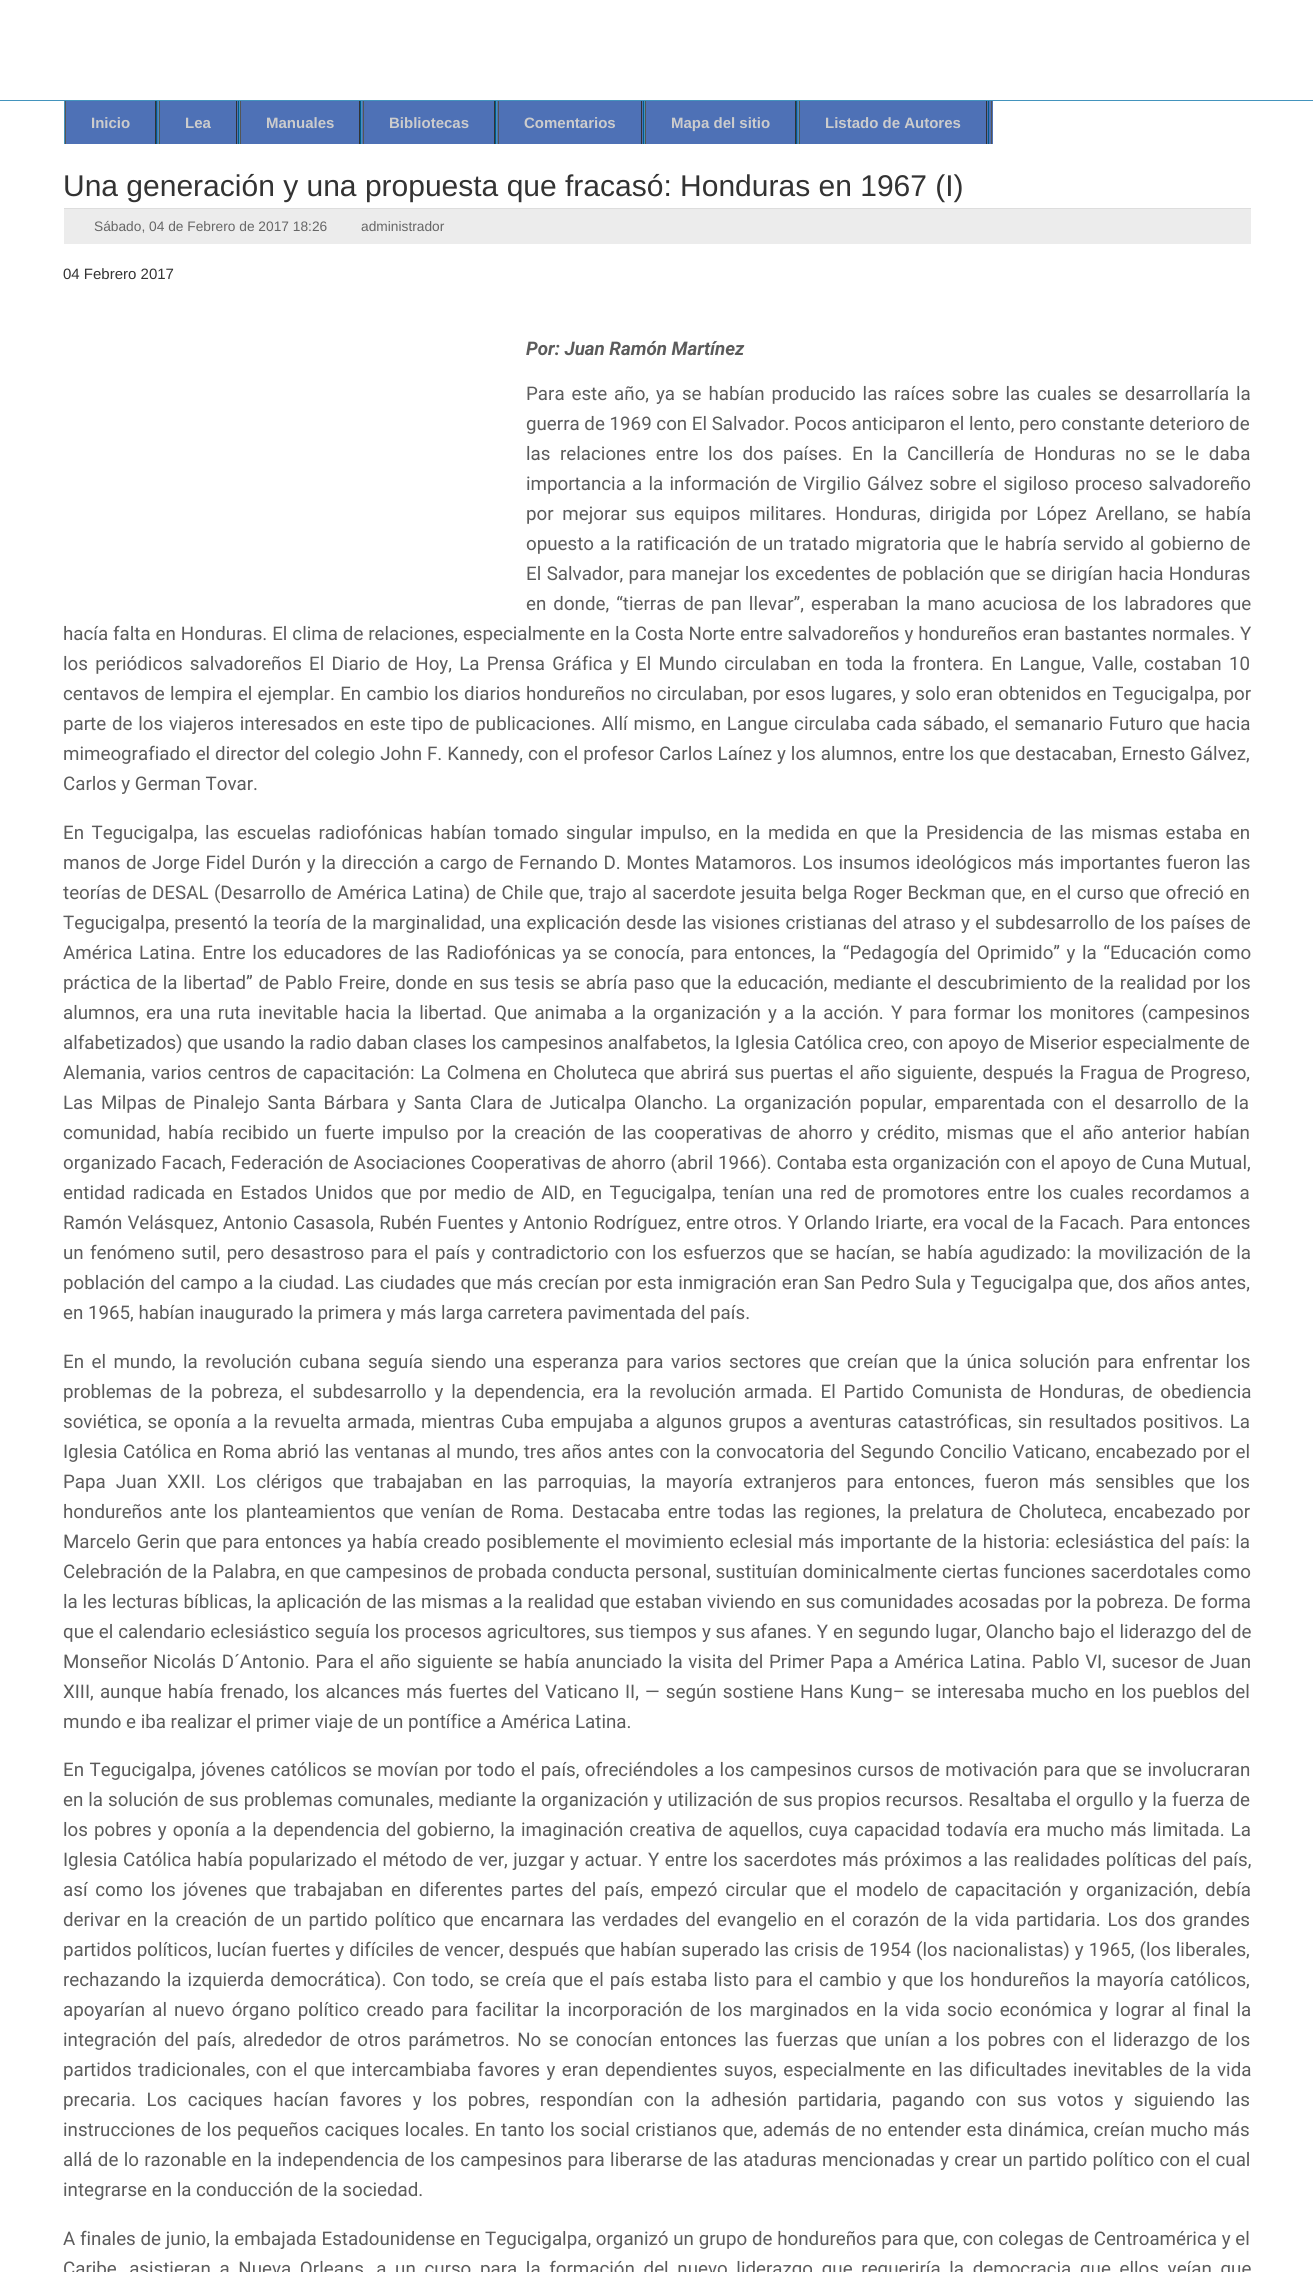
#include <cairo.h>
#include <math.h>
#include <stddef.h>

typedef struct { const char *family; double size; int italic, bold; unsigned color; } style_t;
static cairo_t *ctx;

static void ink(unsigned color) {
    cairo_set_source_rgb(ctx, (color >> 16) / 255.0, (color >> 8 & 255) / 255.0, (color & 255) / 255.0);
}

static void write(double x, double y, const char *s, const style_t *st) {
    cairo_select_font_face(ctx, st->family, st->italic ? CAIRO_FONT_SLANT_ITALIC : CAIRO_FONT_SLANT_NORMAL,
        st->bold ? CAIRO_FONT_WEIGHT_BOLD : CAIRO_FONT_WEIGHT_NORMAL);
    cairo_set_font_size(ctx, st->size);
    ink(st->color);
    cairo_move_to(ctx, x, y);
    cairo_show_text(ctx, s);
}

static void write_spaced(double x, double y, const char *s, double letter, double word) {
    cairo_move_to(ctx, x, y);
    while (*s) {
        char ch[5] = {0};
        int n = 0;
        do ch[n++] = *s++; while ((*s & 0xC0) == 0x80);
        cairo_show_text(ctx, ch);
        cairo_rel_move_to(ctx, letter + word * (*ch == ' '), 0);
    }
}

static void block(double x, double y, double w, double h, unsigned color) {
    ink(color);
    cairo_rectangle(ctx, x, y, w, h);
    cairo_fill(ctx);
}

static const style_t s1 = {"Liberation Sans", 15, 0, 1, 0xcccccc};
static const style_t s2 = {"Liberation Sans", 30, 0, 0, 0x333333};
static const style_t s3 = {"Liberation Sans", 13.75, 0, 0, 0x666666};
static const style_t s4 = {"Liberation Sans", 15, 0, 0, 0x333333};
static const style_t s5 = {"Roboto", 18.75, 1, 1, 0x5c5c5c};
static const style_t s6 = {"Roboto", 18.75, 0, 0, 0x5c5c5c};

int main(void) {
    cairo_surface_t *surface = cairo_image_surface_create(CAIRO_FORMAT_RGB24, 1313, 2272);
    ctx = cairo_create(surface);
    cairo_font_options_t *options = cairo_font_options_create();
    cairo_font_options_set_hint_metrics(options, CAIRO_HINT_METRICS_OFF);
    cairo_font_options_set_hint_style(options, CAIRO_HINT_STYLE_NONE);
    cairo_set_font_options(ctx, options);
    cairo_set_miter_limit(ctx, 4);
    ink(0xffffff);
    cairo_paint(ctx);
    block(0, 100, 1313, 1, 0x4394bd);
    block(66, 101, 927, 43, 0x4e71b6);
    block(991, 101, 1, 43, 0x555555);
    block(156, 101, 1, 43, 0x005a87);
    block(64, 101, 1, 43, 0x4394bd);
    block(155, 101, 1, 43, 0x333333);
    block(65, 101, 1, 43, 0x555555);
    write(91, 128, "Inicio", &s1);
    block(238, 101, 1, 43, 0x005a87);
    block(158, 101, 1, 43, 0x4394bd);
    block(236, 101, 1, 43, 0x333333);
    block(159, 101, 1, 43, 0x555555);
    write(185, 128, "Lea", &s1);
    block(360, 101, 1, 43, 0x005a87);
    block(239, 101, 1, 43, 0x4394bd);
    block(359, 101, 1, 43, 0x333333);
    block(240, 101, 1, 43, 0x555555);
    write(266, 128, "Manuales", &s1);
    block(495, 101, 1, 43, 0x005a87);
    block(361, 101, 1, 43, 0x4394bd);
    block(494, 101, 1, 43, 0x333333);
    block(363, 101, 1, 43, 0x555555);
    write(389, 128, "Bibliotecas", &s1);
    block(643, 101, 1, 43, 0x005a87);
    block(496, 101, 1, 43, 0x4394bd);
    block(641, 101, 1, 43, 0x333333);
    block(498, 101, 1, 43, 0x555555);
    write(524, 128, "Comentarios", &s1);
    block(796, 101, 1, 43, 0x005a87);
    block(644, 101, 1, 43, 0x4394bd);
    block(795, 101, 1, 43, 0x333333);
    block(645, 101, 1, 43, 0x555555);
    write(671, 128, "Mapa del sitio", &s1);
    block(988, 101, 1, 43, 0x005a87);
    block(798, 101, 1, 43, 0x4394bd);
    block(986, 101, 1, 43, 0x333333);
    block(799, 101, 1, 43, 0x555555);
    write(825, 128, "Listado de Autores", &s1);
    write(63, 196, "Una generación y una propuesta que fracasó: Honduras en 1967 (I)", &s2);
    block(64, 209, 1187, 35, 0xececec);
    block(64, 208, 1187, 1, 0xdddddd);
    write(94, 231, "Sábado, 04 de Febrero de 2017 18:26", &s3);
    write(361, 231, "administrador", &s3);
    write(63, 279, "04 Febrero 2017", &s4);
    write(526, 355, "Por: Juan Ramón Martínez", &s5);
    cairo_select_font_face(ctx, "Roboto", CAIRO_FONT_SLANT_NORMAL, CAIRO_FONT_WEIGHT_NORMAL);
    write_spaced(526, 400, "Para este año, ya se habían producido las raíces sobre las cuales se desarrollaría la", 0, 2.25);
    write(526, 430, "guerra de 1969 con El Salvador. Pocos anticiparon el lento, pero constante deterioro de", &s6);
    write_spaced(526, 460, "las relaciones entre los dos países. En la Cancillería de Honduras no se le daba", 0, 4.9);
    write_spaced(526, 490, "importancia a la información de Virgilio Gálvez sobre el sigiloso proceso salvadoreño", 0, 1.6);
    write_spaced(526, 520, "por mejorar sus equipos militares. Honduras, dirigida por López Arellano, se había", 0, 4.1);
    write_spaced(526, 550, "opuesto a la ratificación de un tratado migratoria que le habría servido al gobierno de", 0, 1.25);
    write_spaced(526, 580, "El Salvador, para manejar los excedentes de población que se dirigían hacia Honduras", 0, 0.8);
    write_spaced(526, 610, "en donde, “tierras de pan llevar”, esperaban la mano acuciosa de los labradores que", 0, 2.4);
    write_spaced(63, 640, "hacía falta en Honduras. El clima de relaciones, especialmente en la Costa Norte entre salvadoreños y hondureños eran bastantes normales. Y", 0, 0.25);
    write_spaced(63, 670, "los periódicos salvadoreños El Diario de Hoy, La Prensa Gráfica y El Mundo circulaban en toda la frontera. En Langue, Valle, costaban 10", 0, 2.6);
    write_spaced(63, 700, "centavos de lempira el ejemplar. En cambio los diarios hondureños no circulaban, por esos lugares, y solo eran obtenidos en Tegucigalpa, por", 0, 0.6);
    write_spaced(63, 730, "parte de los viajeros interesados en este tipo de publicaciones. Allí mismo, en Langue circulaba cada sábado, el semanario Futuro que hacia", 0, 1.15);
    write_spaced(63, 760, "mimeografiado el director del colegio John F. Kannedy, con el profesor Carlos Laínez y los alumnos, entre los que destacaban, Ernesto Gálvez,", 0, 0.3);
    write(63, 790, "Carlos y German Tovar.", &s6);
    write_spaced(63, 839, "En Tegucigalpa, las escuelas radiofónicas habían tomado singular impulso, en la medida en que la Presidencia de las mismas estaba en", 0, 2.8);
    write_spaced(63, 869, "manos de Jorge Fidel Durón y la dirección a cargo de Fernando D. Montes Matamoros. Los insumos ideológicos más importantes fueron las", 0, 0.95);
    write_spaced(63, 899, "teorías de DESAL (Desarrollo de América Latina) de Chile que, trajo al sacerdote jesuita belga Roger Beckman que, en el curso que ofreció en", 0, 0.8);
    write_spaced(63, 929, "Tegucigalpa, presentó la teoría de la marginalidad, una explicación desde las visiones cristianas del atraso y el subdesarrollo de los países de", 0, 0.6);
    write_spaced(63, 959, "América Latina. Entre los educadores de las Radiofónicas ya se conocía, para entonces, la “Pedagogía del Oprimido” y la “Educación como", 0, 1.9);
    write_spaced(63, 989, "práctica de la libertad” de Pablo Freire, donde en sus tesis se abría paso que la educación, mediante el descubrimiento de la realidad por los", 0, 1.1);
    write_spaced(63, 1019, "alumnos, era una ruta inevitable hacia la libertad. Que animaba a la organización y a la acción. Y para formar los monitores (campesinos", 0, 2.5);
    write_spaced(63, 1049, "alfabetizados) que usando la radio daban clases los campesinos analfabetos, la Iglesia Católica creo, con apoyo de Miserior especialmente de", 0, 0.1);
    write_spaced(63, 1079, "Alemania, varios centros de capacitación: La Colmena en Choluteca que abrirá sus puertas el año siguiente, después la Fragua de Progreso,", 0, 1.3);
    write_spaced(63, 1109, "Las Milpas de Pinalejo Santa Bárbara y Santa Clara de Juticalpa Olancho. La organización popular, emparentada con el desarrollo de la", 0, 3.25);
    write_spaced(63, 1139, "comunidad, había recibido un fuerte impulso por la creación de las cooperativas de ahorro y crédito, mismas que el año anterior habían", 0, 3.1);
    write_spaced(63, 1169, "organizado Facach, Federación de Asociaciones Cooperativas de ahorro (abril 1966). Contaba esta organización con el apoyo de Cuna Mutual,", 0, 0.2);
    write_spaced(63, 1199, "entidad radicada en Estados Unidos que por medio de AID, en Tegucigalpa, tenían una red de promotores entre los cuales recordamos a", 0, 2.7);
    write_spaced(63, 1229, "Ramón Velásquez, Antonio Casasola, Rubén Fuentes y Antonio Rodríguez, entre otros. Y Orlando Iriarte, era vocal de la Facach. Para entonces", 0, 0.5);
    write_spaced(63, 1259, "un fenómeno sutil, pero desastroso para el país y contradictorio con los esfuerzos que se hacían, se había agudizado: la movilización de la", 0, 1.7);
    write_spaced(63, 1289, "población del campo a la ciudad. Las ciudades que más crecían por esta inmigración eran San Pedro Sula y Tegucigalpa que, dos años antes,", 0, 0.5);
    write(63, 1319, "en 1965, habían inaugurado la primera y más larga carretera pavimentada del país.", &s6);
    write_spaced(63, 1368, "En el mundo, la revolución cubana seguía siendo una esperanza para varios sectores que creían que la única solución para enfrentar los", 0, 2.8);
    write_spaced(63, 1398, "problemas de la pobreza, el subdesarrollo y la dependencia, era la revolución armada. El Partido Comunista de Honduras, de obediencia", 0, 3.25);
    write_spaced(63, 1428, "soviética, se oponía a la revuelta armada, mientras Cuba empujaba a algunos grupos a aventuras catastróficas, sin resultados positivos. La", 0, 1.6);
    write_spaced(63, 1458, "Iglesia Católica en Roma abrió las ventanas al mundo, tres años antes con la convocatoria del Segundo Concilio Vaticano, encabezado por el", 0, 0.8);
    write_spaced(63, 1488, "Papa Juan XXII. Los clérigos que trabajaban en las parroquias, la mayoría extranjeros para entonces, fueron más sensibles que los", 0, 5.4);
    write_spaced(63, 1518, "hondureños ante los planteamientos que venían de Roma. Destacaba entre todas las regiones, la prelatura de Choluteca, encabezado por", 0, 2.6);
    write_spaced(63, 1548, "Marcelo Gerin que para entonces ya había creado posiblemente el movimiento eclesial más importante de la historia: eclesiástica del país: la", 0, 0.8);
    write_spaced(63, 1578, "Celebración de la Palabra, en que campesinos de probada conducta personal, sustituían dominicalmente ciertas funciones sacerdotales como", 0, 0.25);
    write_spaced(63, 1608, "la les lecturas bíblicas, la aplicación de las mismas a la realidad que estaban viviendo en sus comunidades acosadas por la pobreza. De forma", 0, 0.2);
    write_spaced(63, 1638, "que el calendario eclesiástico seguía los procesos agricultores, sus tiempos y sus afanes. Y en segundo lugar, Olancho bajo el liderazgo del de", 0, 0.2);
    write_spaced(63, 1668, "Monseñor Nicolás D´Antonio. Para el año siguiente se había anunciado la visita del Primer Papa a América Latina. Pablo VI, sucesor de Juan", 0, 1);
    write_spaced(63, 1698, "XIII, aunque había frenado, los alcances más fuertes del Vaticano II, — según sostiene Hans Kung– se interesaba mucho en los pueblos del", 0, 1.5);
    write(63, 1728, "mundo e iba realizar el primer viaje de un pontífice a América Latina.", &s6);
    write_spaced(63, 1776, "En Tegucigalpa, jóvenes católicos se movían por todo el país, ofreciéndoles a los campesinos cursos de motivación para que se involucraran", 0, 0.8);
    write_spaced(63, 1806, "en la solución de sus problemas comunales, mediante la organización y utilización de sus propios recursos. Resaltaba el orgullo y la fuerza de", 0, 0.3);
    write_spaced(63, 1836, "los pobres y oponía a la dependencia del gobierno, la imaginación creativa de aquellos, cuya capacidad todavía era mucho más limitada. La", 0, 1.4);
    write_spaced(63, 1866, "Iglesia Católica había popularizado el método de ver, juzgar y actuar. Y entre los sacerdotes más próximos a las realidades políticas del país,", 0, 0.9);
    write_spaced(63, 1896, "así como los jóvenes que trabajaban en diferentes partes del país, empezó circular que el modelo de capacitación y organización, debía", 0, 3.1);
    write_spaced(63, 1926, "derivar en la creación de un partido político que encarnara las verdades del evangelio en el corazón de la vida partidaria. Los dos grandes", 0, 2.1);
    write_spaced(63, 1956, "partidos políticos, lucían fuertes y difíciles de vencer, después que habían superado las crisis de 1954 (los nacionalistas) y 1965, (los liberales,", 0, 0.3);
    write_spaced(63, 1986, "rechazando la izquierda democrática). Con todo, se creía que el país estaba listo para el cambio y que los hondureños la mayoría católicos,", 0, 1.4);
    write_spaced(63, 2016, "apoyarían al nuevo órgano político creado para facilitar la incorporación de los marginados en la vida socio económica y lograr al final la", 0, 2.5);
    write_spaced(63, 2046, "integración del país, alrededor de otros parámetros. No se conocían entonces las fuerzas que unían a los pobres con el liderazgo de los", 0, 2.8);
    write_spaced(63, 2076, "partidos tradicionales, con el que intercambiaba favores y eran dependientes suyos, especialmente en las dificultades inevitables de la vida", 0, 1.75);
    write_spaced(63, 2106, "precaria. Los caciques hacían favores y los pobres, respondían con la adhesión partidaria, pagando con sus votos y siguiendo las", 0, 6);
    write_spaced(63, 2136, "instrucciones de los pequeños caciques locales. En tanto los social cristianos que, además de no entender esta dinámica, creían mucho más", 0, 0.75);
    write_spaced(63, 2166, "allá de lo razonable en la independencia de los campesinos para liberarse de las ataduras mencionadas y crear un partido político con el cual", 0, 0.65);
    write(63, 2196, "integrarse en la conducción de la sociedad.", &s6);
    write_spaced(63, 2245, "A finales de junio, la embajada Estadounidense en Tegucigalpa, organizó un grupo de hondureños para que, con colegas de Centroamérica y el", 0, 0.1);
    write_spaced(63, 2275, "Caribe, asistieran a Nueva Orleans, a un curso para la formación del nuevo liderazgo que requeriría la democracia que ellos veían que", 0, 4);
    cairo_surface_write_to_png(surface, "screenshot.png");
    cairo_font_options_destroy(options);
    cairo_destroy(ctx);
    cairo_surface_destroy(surface);
    return 0;
}
